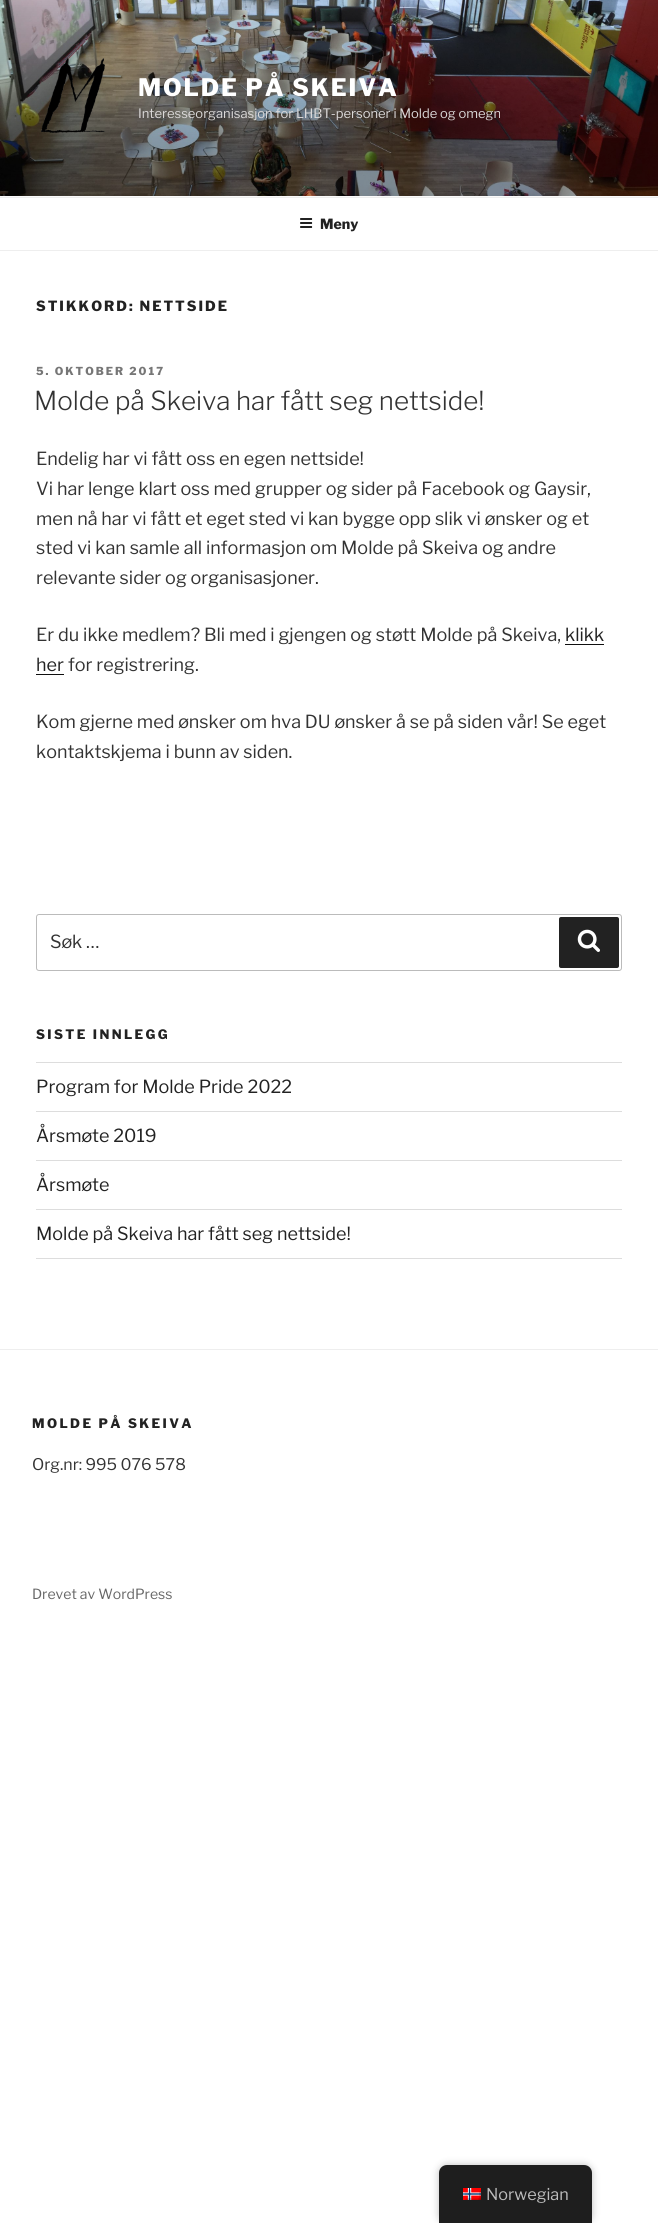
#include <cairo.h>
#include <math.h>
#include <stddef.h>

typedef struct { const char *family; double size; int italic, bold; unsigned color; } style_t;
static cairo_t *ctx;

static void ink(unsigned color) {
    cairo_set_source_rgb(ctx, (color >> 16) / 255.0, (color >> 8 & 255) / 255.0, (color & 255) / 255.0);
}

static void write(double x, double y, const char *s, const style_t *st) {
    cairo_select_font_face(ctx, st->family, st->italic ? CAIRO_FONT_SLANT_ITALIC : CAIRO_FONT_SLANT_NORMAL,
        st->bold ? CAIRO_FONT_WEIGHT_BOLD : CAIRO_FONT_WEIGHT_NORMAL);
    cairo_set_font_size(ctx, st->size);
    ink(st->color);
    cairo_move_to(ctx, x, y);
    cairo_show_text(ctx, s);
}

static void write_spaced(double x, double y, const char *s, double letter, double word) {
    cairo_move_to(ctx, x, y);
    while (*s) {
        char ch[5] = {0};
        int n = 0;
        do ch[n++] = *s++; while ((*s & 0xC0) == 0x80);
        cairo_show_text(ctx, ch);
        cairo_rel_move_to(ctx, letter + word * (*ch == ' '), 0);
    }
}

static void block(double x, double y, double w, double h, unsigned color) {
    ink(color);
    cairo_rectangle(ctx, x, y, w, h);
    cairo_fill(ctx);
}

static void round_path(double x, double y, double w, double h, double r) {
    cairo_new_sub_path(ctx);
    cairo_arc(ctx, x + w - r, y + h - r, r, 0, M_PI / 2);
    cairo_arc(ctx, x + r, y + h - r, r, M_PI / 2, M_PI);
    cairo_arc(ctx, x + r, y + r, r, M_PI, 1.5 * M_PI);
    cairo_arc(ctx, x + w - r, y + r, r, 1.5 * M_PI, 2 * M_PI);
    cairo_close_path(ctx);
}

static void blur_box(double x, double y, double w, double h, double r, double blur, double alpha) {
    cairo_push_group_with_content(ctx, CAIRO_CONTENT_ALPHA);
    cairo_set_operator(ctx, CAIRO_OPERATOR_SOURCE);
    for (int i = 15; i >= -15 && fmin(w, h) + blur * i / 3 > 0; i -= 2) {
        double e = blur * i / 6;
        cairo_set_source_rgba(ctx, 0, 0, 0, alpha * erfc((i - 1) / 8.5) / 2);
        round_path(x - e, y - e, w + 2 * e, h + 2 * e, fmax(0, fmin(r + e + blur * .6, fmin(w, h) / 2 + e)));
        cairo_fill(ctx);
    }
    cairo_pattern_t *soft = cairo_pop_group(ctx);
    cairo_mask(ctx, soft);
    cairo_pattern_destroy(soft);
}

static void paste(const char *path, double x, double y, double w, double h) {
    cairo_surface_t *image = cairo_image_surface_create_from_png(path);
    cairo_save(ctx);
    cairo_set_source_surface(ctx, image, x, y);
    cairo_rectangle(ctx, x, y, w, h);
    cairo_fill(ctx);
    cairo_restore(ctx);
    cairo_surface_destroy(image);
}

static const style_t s1 = {"Libre Franklin", 13, 0, 0, 0xdbd9d9};
static const style_t s2 = {"Libre Franklin ExtraBold", 14, 0, 0, 0x222222};
static const style_t s3 = {"Libre Franklin Light", 26, 0, 0, 0x333333};
static const style_t s4 = {"Libre Franklin", 18, 0, 0, 0x333333};
static const style_t s5 = {"Libre Franklin", 18, 0, 0, 0x222222};
static const style_t s6 = {"Libre Franklin", 16, 0, 0, 0x333333};
static const style_t s7 = {"Libre Franklin", 14, 0, 0, 0x666666};
static const style_t s8 = {"Libre Franklin", 16.25, 0, 0, 0xbdbdbd};

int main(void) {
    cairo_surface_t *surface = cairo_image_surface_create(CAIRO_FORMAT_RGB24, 658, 2223);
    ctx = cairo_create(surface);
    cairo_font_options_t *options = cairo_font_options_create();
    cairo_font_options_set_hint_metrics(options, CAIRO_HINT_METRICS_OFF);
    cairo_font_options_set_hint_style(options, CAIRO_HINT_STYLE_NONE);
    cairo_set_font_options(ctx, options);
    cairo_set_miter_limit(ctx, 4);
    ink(0xffffff);
    cairo_paint(ctx);
    block(0, 196, 658, 1, 0xfafafa);
    paste("pic1.png", 0, 0, 658, 196);
    paste("pic2.png", 41, 58, 64, 75);
    cairo_select_font_face(ctx, "Libre Franklin ExtraBold", CAIRO_FONT_SLANT_NORMAL, CAIRO_FONT_WEIGHT_NORMAL);
    cairo_set_font_size(ctx, 24);
    ink(0xffffff);
    write_spaced(138, 96, "MOLDE PÅ SKEIVA", 1.9, 0);
    write(138, 118, "Interesseorganisasjon for LHBT-personer i Molde og omegn", &s1);
    block(0, 197, 658, 1, 0xeeeeee);
    block(0, 250, 658, 1, 0xeeeeee);
    paste("pic3.png", 300, 218, 13, 10);
    write(320, 229, "Meny", &s2);
    write_spaced(36, 311, "STIKKORD: NETTSIDE", 2, 0);
    cairo_set_font_size(ctx, 11);
    ink(0x767676);
    write_spaced(36, 375, "5. OKTOBER 2017", 2, 0);
    write(34, 410, "Molde på Skeiva har fått seg nettside!", &s3);
    write(36, 465, "Endelig har vi fått oss en egen nettside!", &s4);
    write(36, 495, "Vi har lenge klart oss med grupper og sider på Facebook og Gaysir,", &s4);
    write(36, 525, "men nå har vi fått et eget sted vi kan bygge opp slik vi ønsker og et", &s4);
    write(36, 554, "sted vi kan samle all informasjon om Molde på Skeiva og andre", &s4);
    write(36, 584, "relevante sider og organisasjoner.", &s4);
    write(36, 641, "Er du ikke medlem? Bli med i gjengen og støtt Molde på Skeiva,", &s4);
    write(565, 641, "klikk", &s5);
    block(565, 644, 39, 1, 0x0f0f0f);
    write(36, 671, "her", &s5);
    block(36, 674, 28, 1, 0x0f0f0f);
    write(68, 671, "for registrering.", &s4);
    write(36, 728, "Kom gjerne med ønsker om hva DU ønsker å se på siden vår! Se eget", &s4);
    write(36, 758, "kontaktskjema i bunn av siden.", &s4);
    round_path(36.5, 914.5, 585, 56, 2.5);
    ink(0xbbbbbb);
    cairo_set_line_width(ctx, 1);
    cairo_stroke(ctx);
    write(50, 948, "Søk …", &s4);
    ink(0x222222);
    round_path(559, 917, 60, 51, 2);
    cairo_fill(ctx);
    paste("pic4.png", 577, 929, 23, 23);
    cairo_select_font_face(ctx, "Libre Franklin ExtraBold", CAIRO_FONT_SLANT_NORMAL, CAIRO_FONT_WEIGHT_NORMAL);
    cairo_set_font_size(ctx, 13);
    write_spaced(36, 1039, "SISTE INNLEGG", 2.4, 0);
    block(36, 1062, 586, 1, 0xdddddd);
    block(36, 1111, 586, 1, 0xdddddd);
    write(36, 1093, "Program for Molde Pride 2022", &s5);
    block(36, 1160, 586, 1, 0xdddddd);
    write(36, 1142, "Årsmøte 2019", &s5);
    block(36, 1209, 586, 1, 0xdddddd);
    write(36, 1191, "Årsmøte", &s5);
    block(36, 1258, 586, 1, 0xdddddd);
    write(36, 1240, "Molde på Skeiva har fått seg nettside!", &s5);
    block(0, 1349, 658, 1, 0xeeeeee);
    cairo_select_font_face(ctx, "Libre Franklin ExtraBold", CAIRO_FONT_SLANT_NORMAL, CAIRO_FONT_WEIGHT_NORMAL);
    cairo_set_font_size(ctx, 13);
    ink(0x222222);
    write_spaced(32, 1428, "MOLDE PÅ SKEIVA", 2.4, 0);
    write(32, 1470, "Org.nr: 995 076 578", &s6);
    write(32, 1599, "Drevet av WordPress", &s7);
    ink(0x000000);
    blur_box(439, 2165, 153, 58, 8, 4, 0.25);
    ink(0x1e1e1e);
    cairo_new_path(ctx);
    cairo_move_to(ctx, 447, 2165);
    cairo_line_to(ctx, 584, 2165);
    cairo_curve_to(ctx, 588.5, 2165, 592, 2168.5, 592, 2173);
    cairo_line_to(ctx, 592, 2223);
    cairo_line_to(ctx, 439, 2223);
    cairo_line_to(ctx, 439, 2173);
    cairo_curve_to(ctx, 439, 2168.5, 442.5, 2165, 447, 2165);
    cairo_close_path(ctx);
    cairo_fill(ctx);
    paste("pic5.png", 463, 2188, 18, 12);
    write(486, 2200, "Norwegian", &s8);
    cairo_surface_write_to_png(surface, "screenshot.png");
    cairo_font_options_destroy(options);
    cairo_destroy(ctx);
    cairo_surface_destroy(surface);
    return 0;
}
